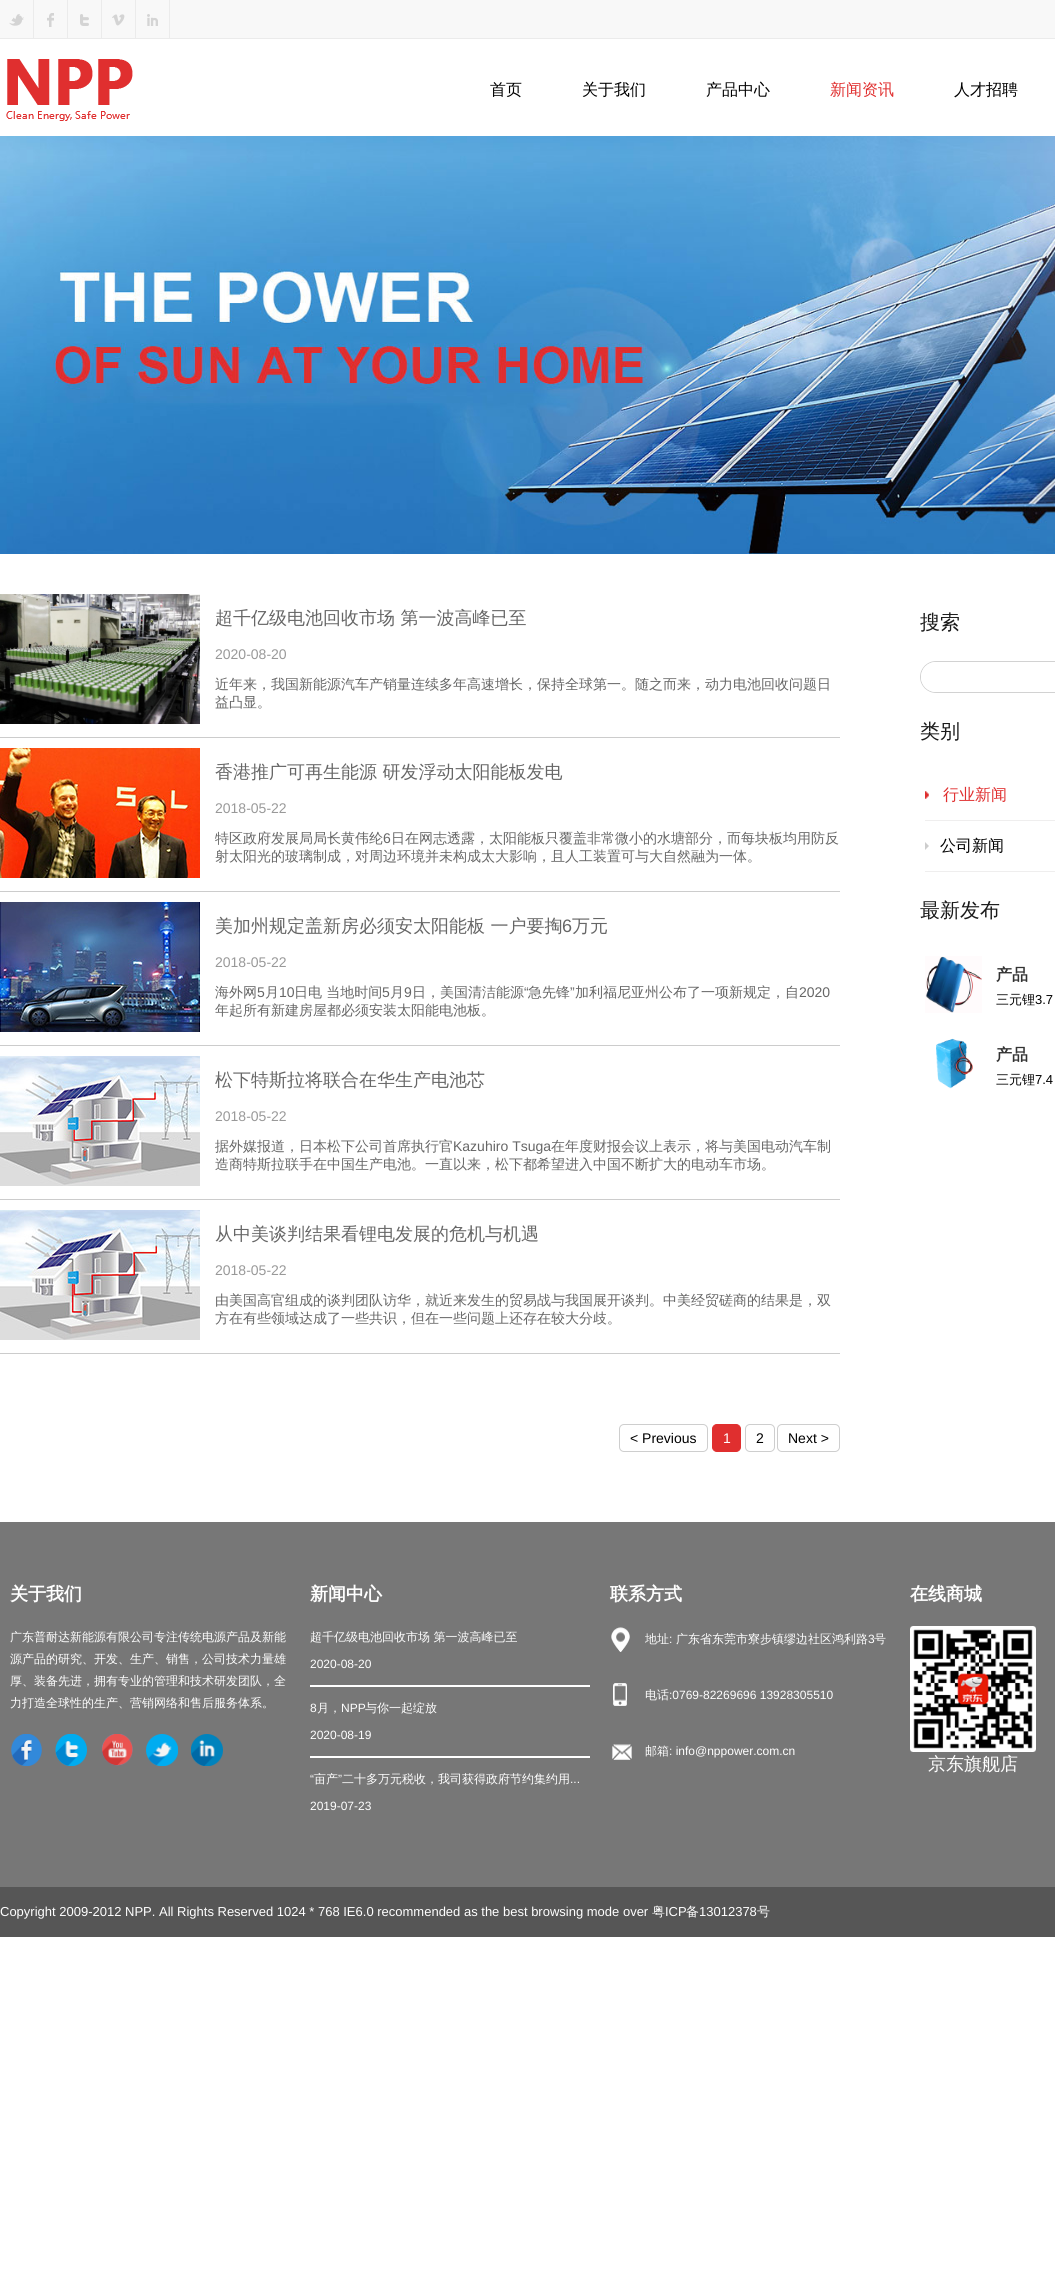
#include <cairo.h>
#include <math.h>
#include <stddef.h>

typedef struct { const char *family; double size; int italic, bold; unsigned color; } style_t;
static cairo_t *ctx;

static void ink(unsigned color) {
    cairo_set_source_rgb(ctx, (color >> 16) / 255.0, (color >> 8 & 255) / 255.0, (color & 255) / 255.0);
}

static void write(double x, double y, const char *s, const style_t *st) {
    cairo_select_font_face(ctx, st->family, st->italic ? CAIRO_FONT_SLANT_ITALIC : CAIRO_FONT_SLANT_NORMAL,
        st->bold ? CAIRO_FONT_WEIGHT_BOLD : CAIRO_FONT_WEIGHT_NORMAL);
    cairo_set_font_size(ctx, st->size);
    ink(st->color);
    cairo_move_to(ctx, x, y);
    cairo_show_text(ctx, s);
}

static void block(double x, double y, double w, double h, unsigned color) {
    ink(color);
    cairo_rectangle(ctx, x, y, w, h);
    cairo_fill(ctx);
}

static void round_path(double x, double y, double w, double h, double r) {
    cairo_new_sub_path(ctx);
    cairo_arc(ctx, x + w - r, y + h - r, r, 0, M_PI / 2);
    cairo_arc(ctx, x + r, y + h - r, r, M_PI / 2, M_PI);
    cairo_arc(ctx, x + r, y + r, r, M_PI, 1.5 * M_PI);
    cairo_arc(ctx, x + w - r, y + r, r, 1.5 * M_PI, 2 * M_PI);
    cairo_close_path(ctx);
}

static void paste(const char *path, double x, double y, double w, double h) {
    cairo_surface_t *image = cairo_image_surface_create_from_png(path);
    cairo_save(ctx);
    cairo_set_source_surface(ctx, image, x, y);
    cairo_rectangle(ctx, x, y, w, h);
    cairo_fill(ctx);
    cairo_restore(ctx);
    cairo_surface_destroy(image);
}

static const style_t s1 = {"WenQuanYi Zen Hei Medium", 16, 0, 0, 0x000000};
static const style_t s2 = {"WenQuanYi Zen Hei Medium", 16, 0, 0, 0xe02f2f};
static const style_t s3 = {"WenQuanYi Zen Hei Medium", 18, 0, 0, 0x666666};
static const style_t s4 = {"Liberation Sans", 14, 0, 0, 0x999999};
static const style_t s5 = {"WenQuanYi Zen Hei Medium", 14, 0, 0, 0x666666};
static const style_t s6 = {"Liberation Sans", 14, 0, 0, 0x666666};
static const style_t s7 = {"Liberation Sans", 18, 0, 0, 0x666666};
static const style_t s8 = {"Liberation Sans", 14, 0, 0, 0x000000};
static const style_t s9 = {"Liberation Sans", 14, 0, 0, 0xffffff};
static const style_t s10 = {"WenQuanYi Zen Hei Medium", 20, 0, 0, 0x1a1a1a};
static const style_t s11 = {"WenQuanYi Zen Hei", 16, 0, 1, 0x333333};
static const style_t s12 = {"WenQuanYi Zen Hei Medium", 13, 0, 0, 0x000000};
static const style_t s13 = {"Liberation Sans", 13, 0, 0, 0x000000};
static const style_t s14 = {"WenQuanYi Zen Hei", 18, 0, 1, 0xffffff};
static const style_t s15 = {"WenQuanYi Zen Hei Medium", 12, 0, 0, 0xffffff};
static const style_t s16 = {"Liberation Sans", 12, 0, 0, 0xffffff};
static const style_t s17 = {"WenQuanYi Zen Hei Medium", 18, 0, 0, 0xffffff};
static const style_t s18 = {"Liberation Sans", 13, 0, 0, 0xffffff};
static const style_t s19 = {"WenQuanYi Zen Hei Medium", 13, 0, 0, 0xffffff};

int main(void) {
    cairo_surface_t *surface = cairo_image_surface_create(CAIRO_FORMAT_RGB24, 1055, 2294);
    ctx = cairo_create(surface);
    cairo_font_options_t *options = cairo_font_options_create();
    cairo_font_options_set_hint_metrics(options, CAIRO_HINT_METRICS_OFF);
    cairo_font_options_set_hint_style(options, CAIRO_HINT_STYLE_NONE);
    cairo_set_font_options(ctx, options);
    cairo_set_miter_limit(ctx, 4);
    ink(0xffffff);
    cairo_paint(ctx);
    block(0, 0, 1055, 38, 0xf8f8f8);
    block(0, 38, 1055, 1, 0xebebeb);
    block(33, 0, 1, 38, 0xebebeb);
    paste("pic1.png", 9, 14, 15, 12);
    block(67, 0, 1, 38, 0xebebeb);
    paste("pic2.png", 47, 13, 7, 14);
    block(101, 0, 1, 38, 0xebebeb);
    paste("pic3.png", 80, 14, 9, 12);
    block(135, 0, 1, 38, 0xebebeb);
    paste("pic4.png", 112, 14, 13, 12);
    block(169, 0, 1, 38, 0xebebeb);
    paste("pic5.png", 147, 14, 11, 12);
    paste("pic6.png", 6, 59, 127, 62);
    write(490, 95, "首页", &s1);
    write(582, 95, "关于我们", &s1);
    write(706, 95, "产品中心", &s1);
    write(830, 95, "新闻资讯", &s2);
    write(954, 95, "人才招聘", &s1);
    paste("pic7.png", 0, 136, 1055, 418);
    block(0, 737, 840, 1, 0xcccccc);
    paste("pic8.png", 0, 594, 200, 130);
    write(215, 624, "超千亿级电池回收市场 第一波高峰已至", &s3);
    write(215, 659, "2020-08-20", &s4);
    write(215, 689, "近年来，我国新能源汽车产销量连续多年高速增长，保持全球第一。随之而来，动力电池回收问题日", &s5);
    write(215, 707, "益凸显。", &s5);
    block(0, 891, 840, 1, 0xcccccc);
    paste("pic9.png", 0, 748, 200, 130);
    write(215, 778, "香港推广可再生能源 研发浮动太阳能板发电", &s3);
    write(215, 813, "2018-05-22", &s4);
    write(215, 843, "特区政府发展局局长黄伟纶", &s5);
    write(383, 843, "6", &s6);
    write(391, 843, "日在网志透露，太阳能板只覆盖非常微小的水塘部分，而每块板均用防反", &s5);
    write(215, 861, "射太阳光的玻璃制成，对周边环境并未构成太大影响，且人工装置可与大自然融为一体。", &s5);
    block(0, 1045, 840, 1, 0xcccccc);
    paste("pic10.png", 0, 902, 200, 130);
    write(215, 932, "美加州规定盖新房必须安太阳能板 一户要掏", &s3);
    write(562, 932, "6", &s7);
    write(572, 932, "万元", &s3);
    write(215, 967, "2018-05-22", &s4);
    write(215, 997, "海外网", &s5);
    write(257, 997, "5", &s6);
    write(265, 997, "月", &s5);
    write(279, 997, "10", &s6);
    write(294, 997, "日电 当地时间", &s5);
    write(382, 997, "5", &s6);
    write(390, 997, "月", &s5);
    write(404, 997, "9", &s6);
    write(412, 997, "日，美国清洁能源", &s5);
    write(524, 997, "“", &s6);
    write(528, 997, "急先锋", &s5);
    write(570, 997, "”", &s6);
    write(575, 997, "加利福尼亚州公布了一项新规定，自", &s5);
    write(799, 997, "2020", &s6);
    write(215, 1015, "年起所有新建房屋都必须安装太阳能电池板。", &s5);
    block(0, 1199, 840, 1, 0xcccccc);
    paste("pic11.png", 0, 1056, 200, 130);
    write(215, 1086, "松下特斯拉将联合在华生产电池芯", &s3);
    write(215, 1121, "2018-05-22", &s4);
    write(215, 1151, "据外媒报道，日本松下公司首席执行官", &s5);
    write(453, 1151, "Kazuhiro Tsuga", &s6);
    write(551, 1151, "在年度财报会议上表示，将与美国电动汽车制", &s5);
    write(215, 1169, "造商特斯拉联手在中国生产电池。一直以来，松下都希望进入中国不断扩大的电动车市场。", &s5);
    block(0, 1353, 840, 1, 0xcccccc);
    paste("pic12.png", 0, 1210, 200, 130);
    write(215, 1240, "从中美谈判结果看锂电发展的危机与机遇", &s3);
    write(215, 1275, "2018-05-22", &s4);
    write(215, 1305, "由美国高官组成的谈判团队访华，就近来发生的贸易战与我国展开谈判。中美经贸磋商的结果是，双", &s5);
    write(215, 1323, "方在有些领域达成了一些共识，但在一些问题上还存在较大分歧。", &s5);
    round_path(619.5, 1424.5, 88, 27, 4.5);
    ink(0xcecece);
    cairo_set_line_width(ctx, 1);
    cairo_stroke(ctx);
    write(630, 1443, "< Previous", &s8);
    ink(0xe02f2f);
    round_path(712.5, 1424.5, 28, 27, 4.5);
    cairo_fill_preserve(ctx);
    cairo_stroke(ctx);
    write(723, 1443, "1", &s9);
    round_path(745.5, 1424.5, 29, 27, 4.5);
    ink(0xcecece);
    cairo_stroke(ctx);
    write(756, 1443, "2", &s8);
    round_path(777.5, 1424.5, 62, 27, 4.5);
    ink(0xcecece);
    cairo_stroke(ctx);
    write(788, 1443, "Next >", &s8);
    write(920, 629, "搜索", &s10);
    round_path(920.5, 661.5, 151, 31, 15.5);
    ink(0xd2d2d2);
    cairo_stroke(ctx);
    ink(0xffffff);
    cairo_new_path(ctx);
    cairo_move_to(ctx, 936, 662);
    cairo_line_to(ctx, 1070, 662);
    cairo_line_to(ctx, 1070, 692);
    cairo_line_to(ctx, 936, 692);
    cairo_curve_to(ctx, 927.5, 692, 921, 685.5, 921, 677);
    cairo_curve_to(ctx, 921, 668.5, 927.5, 662, 936, 662);
    cairo_close_path(ctx);
    cairo_fill(ctx);
    write(920, 738, "类别", &s10);
    paste("pic13.png", 925, 791, 4, 8);
    block(925, 820, 130, 1, 0xefeeee);
    write(943, 800, "行业新闻", &s2);
    paste("pic14.png", 925, 842, 4, 8);
    block(925, 871, 130, 1, 0xefeeee);
    write(940, 851, "公司新闻", &s1);
    write(920, 917, "最新发布", &s10);
    paste("pic15.png", 925, 956, 57, 57);
    write(996, 980, "产品", &s11);
    write(996, 1004, "三元锂", &s12);
    write(1035, 1004, "3.7", &s13);
    paste("pic16.png", 936, 1038, 37, 51);
    write(996, 1060, "产品", &s11);
    write(996, 1084, "三元锂", &s12);
    write(1035, 1084, "7.4", &s13);
    block(0, 1522, 1055, 365, 0x777777);
    write(10, 1600, "关于我们", &s14);
    write(10, 1641, "广东普耐达新能源有限公司专注传统电源产品及新能", &s15);
    write(10, 1663, "源产品的研究、开发、生产、销售，公司技术力量雄", &s15);
    write(10, 1685, "厚、装备先进，拥有专业的管理和技术研发团队，全", &s15);
    write(10, 1707, "力打造全球性的生产、营销网络和售后服务体系。", &s15);
    paste("pic17.png", 11, 1734, 31, 32);
    paste("pic18.png", 55, 1734, 32, 32);
    paste("pic19.png", 101, 1734, 32, 32);
    paste("pic20.png", 146, 1734, 32, 32);
    paste("pic21.png", 191, 1734, 32, 32);
    write(310, 1600, "新闻中心", &s14);
    block(310, 1685, 280, 2, 0xffffff);
    write(310, 1641, "超千亿级电池回收市场 第一波高峰已至", &s15);
    write(310, 1668, "2020-08-20", &s16);
    block(310, 1756, 280, 2, 0xffffff);
    write(310, 1712, "8", &s16);
    write(317, 1712, "月，", &s15);
    write(341, 1712, "NPP", &s16);
    write(365, 1712, "与你一起绽放", &s15);
    write(310, 1739, "2020-08-19", &s16);
    write(310, 1783, "“", &s16);
    write(314, 1783, "亩产", &s15);
    write(338, 1783, "”", &s16);
    write(342, 1783, "二十多万元税收，我司获得政府节约集约用", &s15);
    write(570, 1783, "...", &s16);
    write(310, 1810, "2019-07-23", &s16);
    write(610, 1600, "联系方式", &s14);
    paste("pic22.png", 611, 1627, 19, 25);
    write(645, 1643, "地址", &s15);
    write(669, 1643, ":", &s16);
    write(676, 1643, "广东省东莞市寮步镇缪边社区鸿利路", &s15);
    write(868, 1643, "3", &s16);
    write(874, 1643, "号", &s15);
    paste("pic23.png", 613, 1683, 14, 23);
    write(645, 1699, "电话", &s15);
    write(669, 1699, ":0769-82269696 13928305510", &s16);
    paste("pic24.png", 612, 1744, 20, 16);
    write(645, 1755, "邮箱", &s15);
    write(669, 1755, ": info@nppower.com.cn", &s16);
    write(910, 1600, "在线商城", &s14);
    paste("pic25.png", 910, 1626, 126, 126);
    write(928, 1770, "京东旗舰店", &s17);
    block(0, 1887, 1055, 50, 0x565656);
    write(0, 1916, "Copyright 2009-2012 NPP. All Rights Reserved 1024 * 768 IE6.0 recommended as the best browsing mode over", &s18);
    write(652, 1916, "粤", &s19);
    write(665, 1916, "ICP", &s18);
    write(686, 1916, "备", &s19);
    write(699, 1916, "13012378", &s18);
    write(757, 1916, "号", &s19);
    cairo_surface_write_to_png(surface, "screenshot.png");
    cairo_font_options_destroy(options);
    cairo_destroy(ctx);
    cairo_surface_destroy(surface);
    return 0;
}
